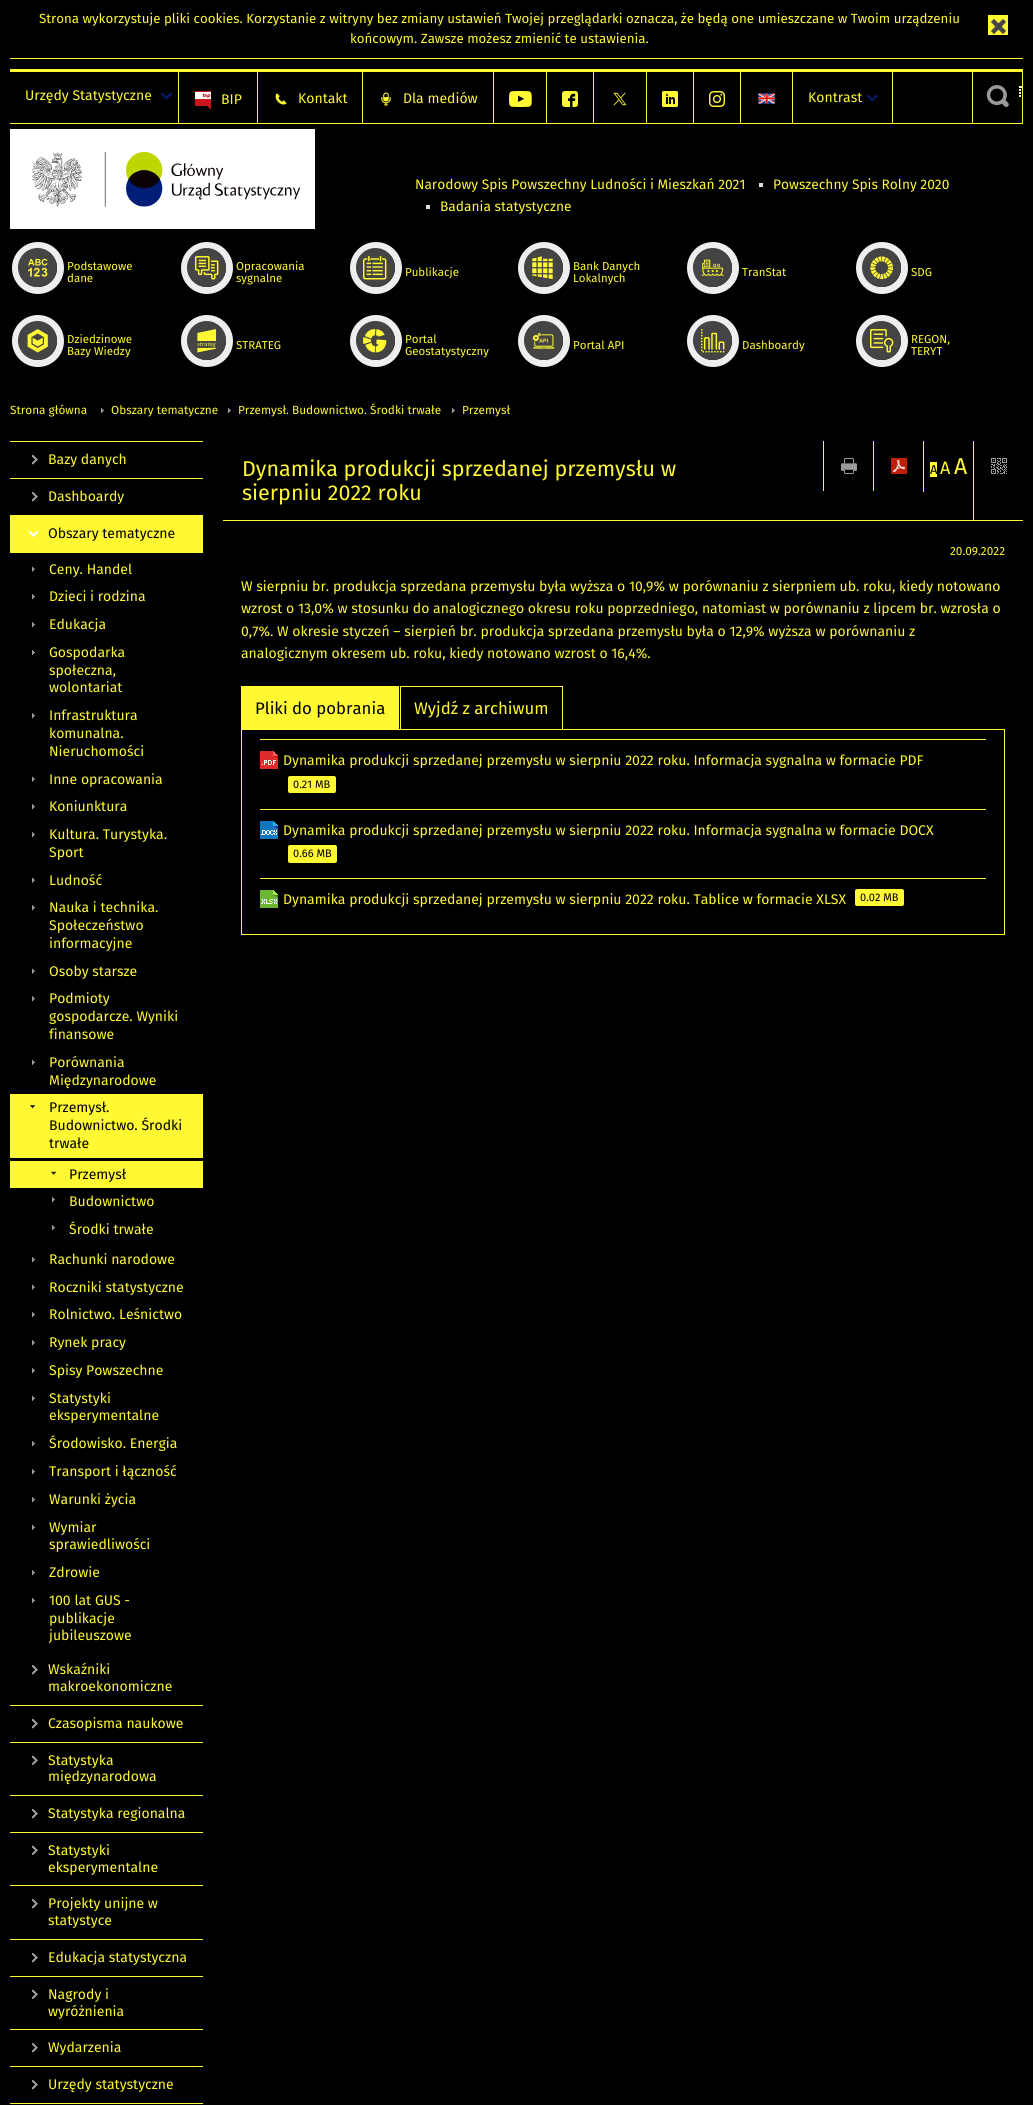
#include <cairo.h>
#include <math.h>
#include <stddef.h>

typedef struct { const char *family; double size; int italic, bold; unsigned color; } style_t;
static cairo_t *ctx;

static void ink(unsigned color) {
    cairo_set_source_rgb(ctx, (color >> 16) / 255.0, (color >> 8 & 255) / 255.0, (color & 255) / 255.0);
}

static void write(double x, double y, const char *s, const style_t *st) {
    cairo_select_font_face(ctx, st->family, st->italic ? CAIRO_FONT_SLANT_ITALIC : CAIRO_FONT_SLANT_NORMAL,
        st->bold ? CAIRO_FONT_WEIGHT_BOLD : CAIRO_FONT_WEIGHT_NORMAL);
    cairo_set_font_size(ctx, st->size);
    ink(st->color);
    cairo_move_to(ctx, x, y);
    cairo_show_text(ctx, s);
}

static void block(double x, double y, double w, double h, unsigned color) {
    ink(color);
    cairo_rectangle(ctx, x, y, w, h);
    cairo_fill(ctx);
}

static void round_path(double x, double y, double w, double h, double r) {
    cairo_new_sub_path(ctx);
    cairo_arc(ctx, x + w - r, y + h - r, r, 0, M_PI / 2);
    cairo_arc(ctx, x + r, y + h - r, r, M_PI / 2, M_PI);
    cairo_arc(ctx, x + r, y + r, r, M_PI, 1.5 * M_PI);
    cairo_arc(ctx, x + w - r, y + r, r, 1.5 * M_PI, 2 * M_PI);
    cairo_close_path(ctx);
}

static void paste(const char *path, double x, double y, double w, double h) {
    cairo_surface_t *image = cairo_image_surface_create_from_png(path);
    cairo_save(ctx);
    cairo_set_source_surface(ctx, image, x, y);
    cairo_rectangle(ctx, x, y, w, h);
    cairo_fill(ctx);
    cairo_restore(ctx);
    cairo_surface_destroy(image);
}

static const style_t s1 = {"Fira Sans", 13.3, 0, 0, 0xfff832};
static const style_t s2 = {"Fira Sans", 14, 0, 0, 0xfff832};
static const style_t s3 = {"Fira Sans", 13.75, 0, 0, 0xfff832};
static const style_t s4 = {"Fira Sans", 11.5, 0, 0, 0xfff832};
static const style_t s5 = {"Fira Sans", 11.8, 0, 0, 0xfff832};
static const style_t s6 = {"Fira Sans", 14, 0, 0, 0x000000};
static const style_t s7 = {"Fira Sans", 21.5, 0, 0, 0xfff832};
static const style_t s8 = {"Fira Sans", 13, 0, 0, 0x000000};
static const style_t s9 = {"Fira Sans", 18, 0, 0, 0xfff832};
static const style_t s10 = {"Fira Sans", 23, 0, 0, 0xfff832};
static const style_t s11 = {"Fira Sans", 16.75, 0, 0, 0x000000};
static const style_t s12 = {"Fira Sans", 16.75, 0, 0, 0xfff832};
static const style_t s13 = {"Fira Sans", 11, 0, 0, 0x000000};

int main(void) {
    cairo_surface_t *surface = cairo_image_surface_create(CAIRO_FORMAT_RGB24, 1033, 2105);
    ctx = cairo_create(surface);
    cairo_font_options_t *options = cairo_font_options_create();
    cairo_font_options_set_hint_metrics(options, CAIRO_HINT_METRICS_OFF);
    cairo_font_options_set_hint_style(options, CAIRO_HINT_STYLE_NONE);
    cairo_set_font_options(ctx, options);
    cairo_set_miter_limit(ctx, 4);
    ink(0x000000);
    cairo_paint(ctx);
    block(10, 58, 1013, 1, 0xfff832);
    write(39, 23, "Strona wykorzystuje pliki cookies. Korzystanie z witryny bez zmiany ustawień Twojej przeglądarki oznacza, że będą one umieszczane w Twoim urządzeniu", &s1);
    block(988, 15, 20, 20, 0xfff832);
    paste("pic1.png", 991, 19, 15, 15);
    write(350, 43, "końcowym. Zawsze możesz zmienić te ustawienia.", &s1);
    block(10, 69, 1013, 3, 0xfff832);
    block(10, 123, 1013, 1, 0xfff832);
    block(178, 72, 1, 51, 0xfff832);
    write(25, 100, "Urzędy Statystyczne", &s2);
    ink(0x001d77);
    cairo_new_path(ctx);
    cairo_move_to(ctx, 170.5, 92.5);
    cairo_line_to(ctx, 172, 94);
    cairo_line_to(ctx, 166.5, 99.5);
    cairo_line_to(ctx, 165, 98);
    cairo_close_path(ctx);
    cairo_fill(ctx);
    cairo_new_path(ctx);
    cairo_move_to(ctx, 162, 92.5);
    cairo_line_to(ctx, 168, 98);
    cairo_line_to(ctx, 166.5, 99.5);
    cairo_line_to(ctx, 161, 94);
    cairo_close_path(ctx);
    cairo_fill(ctx);
    block(257, 72, 1, 51, 0xfff832);
    paste("pic2.png", 195, 91, 16, 18);
    write(221, 104, "BIP", &s2);
    block(362, 72, 1, 51, 0xfff832);
    paste("pic3.png", 275, 93, 12, 12);
    write(298, 103, "Kontakt", &s2);
    block(493, 72, 1, 51, 0xfff832);
    paste("pic4.png", 381, 92, 10, 14);
    write(403, 103, "Dla mediów", &s2);
    block(546, 72, 1, 51, 0xfff832);
    paste("pic5.png", 509, 91, 23, 16);
    block(593, 72, 1, 51, 0xfff832);
    paste("pic6.png", 562, 91, 16, 16);
    block(646, 72, 1, 51, 0xfff832);
    paste("pic7.png", 613, 92, 14, 14);
    block(693, 72, 1, 51, 0xfff832);
    paste("pic8.png", 662, 91, 16, 16);
    block(740, 72, 1, 51, 0xfff832);
    paste("pic9.png", 709, 91, 16, 16);
    block(792, 72, 1, 51, 0xfff832);
    paste("pic10.png", 758, 93, 17, 11);
    block(892, 72, 1, 51, 0xfff832);
    write(808, 102, "Kontrast", &s2);
    ink(0x001d77);
    cairo_new_path(ctx);
    cairo_move_to(ctx, 876.5, 94.5);
    cairo_line_to(ctx, 878, 96);
    cairo_line_to(ctx, 872, 101.5);
    cairo_line_to(ctx, 871, 100);
    cairo_close_path(ctx);
    cairo_fill(ctx);
    cairo_new_path(ctx);
    cairo_move_to(ctx, 868, 94.5);
    cairo_line_to(ctx, 873.5, 100);
    cairo_line_to(ctx, 872, 101.5);
    cairo_line_to(ctx, 866.5, 96);
    cairo_close_path(ctx);
    cairo_fill(ctx);
    paste("pic11.png", 986, 85, 36, 22);
    block(1022, 72, 1, 51, 0xfff832);
    block(972, 72, 1, 51, 0xfff832);
    block(10, 129, 305, 100, 0xffffff);
    paste("pic12.png", 32, 151, 269, 56);
    write(415, 189, "Narodowy Spis Powszechny Ludności i Mieszkań 2021", &s3);
    write(773, 189, "Powszechny Spis Rolny 2020", &s3);
    block(759, 183, 4, 4, 0xdddddd);
    write(440, 211, "Badania statystyczne", &s3);
    block(426, 205, 4, 4, 0xdddddd);
    cairo_new_path(ctx);
    cairo_arc(ctx, 38, 268, 22.5, 0, 2 * M_PI);
    ink(0xeeeeee);
    cairo_set_line_width(ctx, 7);
    cairo_stroke(ctx);
    ink(0x444444);
    cairo_arc(ctx, 37.5, 267.5, 19.5, 0, 2 * M_PI);
    cairo_fill(ctx);
    paste("pic13.png", 28, 258, 20, 19);
    write(67, 270, "Podstawowe", &s4);
    write(67, 282, "dane", &s4);
    cairo_new_path(ctx);
    cairo_arc(ctx, 207, 268, 22.5, 0, 2 * M_PI);
    ink(0xeeeeee);
    cairo_stroke(ctx);
    ink(0x444444);
    cairo_arc(ctx, 206.5, 267.5, 19.5, 0, 2 * M_PI);
    cairo_fill(ctx);
    paste("pic14.png", 195, 256, 24, 24);
    write(236, 270, "Opracowania", &s4);
    write(236, 282, "sygnalne", &s4);
    cairo_new_path(ctx);
    cairo_arc(ctx, 376, 268, 22.5, 0, 2 * M_PI);
    ink(0xeeeeee);
    cairo_stroke(ctx);
    ink(0x444444);
    cairo_arc(ctx, 375.5, 267.5, 19.5, 0, 2 * M_PI);
    cairo_fill(ctx);
    paste("pic15.png", 363, 256, 24, 24);
    write(405, 276, "Publikacje", &s4);
    cairo_new_path(ctx);
    cairo_arc(ctx, 544, 268, 22.5, 0, 2 * M_PI);
    ink(0xeeeeee);
    cairo_stroke(ctx);
    ink(0x444444);
    cairo_arc(ctx, 543.5, 267.5, 19.5, 0, 2 * M_PI);
    cairo_fill(ctx);
    paste("pic16.png", 532, 256, 21, 24);
    write(573, 270, "Bank Danych", &s4);
    write(573, 282, "Lokalnych", &s4);
    cairo_new_path(ctx);
    cairo_arc(ctx, 713, 268, 22.5, 0, 2 * M_PI);
    ink(0xeeeeee);
    cairo_stroke(ctx);
    ink(0x444444);
    cairo_arc(ctx, 712.5, 267.5, 19.5, 0, 2 * M_PI);
    cairo_fill(ctx);
    paste("pic17.png", 701, 259, 23, 17);
    write(742, 276, "TranStat", &s4);
    cairo_new_path(ctx);
    cairo_arc(ctx, 882, 268, 22.5, 0, 2 * M_PI);
    ink(0xeeeeee);
    cairo_stroke(ctx);
    ink(0x444444);
    cairo_arc(ctx, 881.5, 267.5, 19.5, 0, 2 * M_PI);
    cairo_fill(ctx);
    paste("pic18.png", 870, 256, 23, 24);
    write(911, 276, "SDG", &s4);
    cairo_new_path(ctx);
    cairo_arc(ctx, 38, 341, 22.5, 0, 2 * M_PI);
    ink(0xeeeeee);
    cairo_stroke(ctx);
    ink(0x444444);
    cairo_arc(ctx, 37.5, 340.5, 19.5, 0, 2 * M_PI);
    cairo_fill(ctx);
    paste("pic19.png", 27, 329, 21, 24);
    write(67, 343, "Dziedzinowe", &s4);
    write(67, 355, "Bazy Wiedzy", &s4);
    cairo_new_path(ctx);
    cairo_arc(ctx, 207, 341, 22.5, 0, 2 * M_PI);
    ink(0xeeeeee);
    cairo_stroke(ctx);
    ink(0x444444);
    cairo_arc(ctx, 206.5, 340.5, 19.5, 0, 2 * M_PI);
    cairo_fill(ctx);
    paste("pic20.png", 197, 329, 20, 24);
    write(236, 349, "STRATEG", &s4);
    cairo_new_path(ctx);
    cairo_arc(ctx, 376, 341, 22.5, 0, 2 * M_PI);
    ink(0xeeeeee);
    cairo_stroke(ctx);
    ink(0x444444);
    cairo_arc(ctx, 375.5, 340.5, 19.5, 0, 2 * M_PI);
    cairo_fill(ctx);
    paste("pic21.png", 363, 329, 24, 24);
    write(405, 343, "Portal", &s4);
    write(405, 355, "Geostatystyczny", &s4);
    cairo_new_path(ctx);
    cairo_arc(ctx, 544, 341, 22.5, 0, 2 * M_PI);
    ink(0xeeeeee);
    cairo_stroke(ctx);
    ink(0x444444);
    cairo_arc(ctx, 543.5, 340.5, 19.5, 0, 2 * M_PI);
    cairo_fill(ctx);
    paste("pic22.png", 532, 332, 23, 17);
    write(573, 349, "Portal API", &s4);
    cairo_new_path(ctx);
    cairo_arc(ctx, 713, 341, 22.5, 0, 2 * M_PI);
    ink(0xeeeeee);
    cairo_stroke(ctx);
    ink(0x444444);
    cairo_arc(ctx, 712.5, 340.5, 19.5, 0, 2 * M_PI);
    cairo_fill(ctx);
    paste("pic23.png", 701, 329, 24, 24);
    write(742, 349, "Dashboardy", &s4);
    cairo_new_path(ctx);
    cairo_arc(ctx, 882, 341, 22.5, 0, 2 * M_PI);
    ink(0xeeeeee);
    cairo_stroke(ctx);
    ink(0x444444);
    cairo_arc(ctx, 881.5, 340.5, 19.5, 0, 2 * M_PI);
    cairo_fill(ctx);
    paste("pic24.png", 870, 329, 24, 24);
    write(911, 343, "REGON,", &s4);
    write(911, 355, "TERYT", &s4);
    write(10, 414, "Strona główna", &s5);
    paste("pic25.png", 101, 408, 3, 6);
    write(111, 414, "Obszary tematyczne", &s5);
    paste("pic25.png", 228, 408, 3, 6);
    write(238, 414, "Przemysł. Budownictwo. Środki trwałe", &s5);
    paste("pic25.png", 452, 408, 3, 6);
    write(462, 414, "Przemysł", &s5);
    paste("pic26.png", 32, 455, 6, 10);
    block(10, 441, 193, 1, 0xfff832);
    write(48, 464, "Bazy danych", &s2);
    paste("pic26.png", 32, 492, 6, 10);
    block(10, 478, 193, 1, 0xfff832);
    write(48, 501, "Dashboardy", &s2);
    block(10, 515, 193, 38, 0xfff832);
    paste("pic27.png", 29, 531, 9, 7);
    write(48, 538, "Obszary tematyczne", &s6);
    paste("pic28.png", 32, 566, 3, 6);
    write(49, 574, "Ceny. Handel", &s2);
    paste("pic29.png", 32, 594, 3, 6);
    write(49, 601, "Dzieci i rodzina", &s2);
    paste("pic29.png", 32, 622, 3, 6);
    write(49, 629, "Edukacja", &s2);
    paste("pic30.png", 32, 650, 3, 5);
    write(49, 657, "Gospodarka", &s2);
    write(49, 675, "społeczna,", &s2);
    write(49, 692, "wolontariat", &s2);
    paste("pic31.png", 32, 713, 3, 6);
    write(49, 720, "Infrastruktura", &s2);
    write(49, 738, "komunalna.", &s2);
    write(49, 756, "Nieruchomości", &s2);
    paste("pic28.png", 32, 776, 3, 6);
    write(49, 784, "Inne opracowania", &s2);
    paste("pic29.png", 32, 804, 3, 6);
    write(49, 811, "Koniunktura", &s2);
    paste("pic32.png", 32, 832, 3, 6);
    write(49, 839, "Kultura. Turystyka.", &s2);
    write(49, 857, "Sport", &s2);
    paste("pic28.png", 32, 877, 3, 6);
    write(49, 885, "Ludność", &s2);
    paste("pic31.png", 32, 905, 3, 6);
    write(49, 912, "Nauka i technika.", &s2);
    write(49, 930, "Społeczeństwo", &s2);
    write(49, 948, "informacyjne", &s2);
    paste("pic28.png", 32, 968, 3, 6);
    write(49, 976, "Osoby starsze", &s2);
    paste("pic31.png", 32, 996, 3, 6);
    write(49, 1003, "Podmioty", &s2);
    write(49, 1021, "gospodarcze. Wyniki", &s2);
    write(49, 1039, "finansowe", &s2);
    paste("pic33.png", 32, 1059, 3, 6);
    write(49, 1067, "Porównania", &s2);
    write(49, 1085, "Międzynarodowe", &s2);
    block(10, 1094, 193, 64, 0xfff832);
    paste("pic34.png", 30, 1105, 6, 4);
    write(49, 1112, "Przemysł.", &s6);
    write(49, 1130, "Budownictwo. Środki", &s6);
    write(49, 1148, "trwałe", &s6);
    block(10, 1161, 193, 27, 0xfff832);
    paste("pic35.png", 51, 1171, 6, 4);
    write(69, 1179, "Przemysł", &s6);
    paste("pic36.png", 52, 1197, 3, 6);
    write(69, 1206, "Budownictwo", &s2);
    paste("pic36.png", 52, 1225, 3, 6);
    write(69, 1234, "Środki trwałe", &s2);
    paste("pic29.png", 32, 1257, 3, 6);
    write(49, 1264, "Rachunki narodowe", &s2);
    paste("pic28.png", 32, 1284, 3, 6);
    write(49, 1292, "Roczniki statystyczne", &s2);
    paste("pic29.png", 32, 1312, 3, 6);
    write(49, 1319, "Rolnictwo. Leśnictwo", &s2);
    paste("pic29.png", 32, 1340, 3, 6);
    write(49, 1347, "Rynek pracy", &s2);
    paste("pic29.png", 32, 1368, 3, 6);
    write(49, 1375, "Spisy Powszechne", &s2);
    paste("pic33.png", 32, 1395, 3, 6);
    write(49, 1403, "Statystyki", &s2);
    write(49, 1420, "eksperymentalne", &s2);
    paste("pic29.png", 32, 1441, 3, 6);
    write(49, 1448, "Środowisko. Energia", &s2);
    paste("pic29.png", 32, 1469, 3, 6);
    write(49, 1476, "Transport i łączność", &s2);
    paste("pic29.png", 32, 1497, 3, 6);
    write(49, 1504, "Warunki życia", &s2);
    paste("pic33.png", 32, 1524, 3, 6);
    write(49, 1532, "Wymiar", &s2);
    write(49, 1549, "sprawiedliwości", &s2);
    paste("pic29.png", 32, 1570, 3, 6);
    write(49, 1577, "Zdrowie", &s2);
    paste("pic30.png", 32, 1598, 3, 5);
    write(49, 1605, "100 lat GUS -", &s2);
    write(49, 1623, "publikacje", &s2);
    write(49, 1640, "jubileuszowe", &s2);
    paste("pic37.png", 32, 1665, 6, 10);
    write(48, 1674, "Wskaźniki", &s2);
    write(48, 1691, "makroekonomiczne", &s2);
    paste("pic26.png", 32, 1719, 6, 10);
    block(10, 1705, 193, 1, 0xfff832);
    write(48, 1728, "Czasopisma naukowe", &s2);
    paste("pic38.png", 32, 1755, 6, 10);
    block(10, 1742, 193, 1, 0xfff832);
    write(48, 1765, "Statystyka", &s2);
    write(48, 1781, "międzynarodowa", &s2);
    paste("pic26.png", 32, 1809, 6, 10);
    block(10, 1795, 193, 1, 0xfff832);
    write(48, 1818, "Statystyka regionalna", &s2);
    paste("pic38.png", 32, 1845, 6, 10);
    block(10, 1832, 193, 1, 0xfff832);
    write(48, 1855, "Statystyki", &s2);
    write(48, 1872, "eksperymentalne", &s2);
    paste("pic37.png", 32, 1899, 6, 10);
    block(10, 1885, 193, 1, 0xfff832);
    write(48, 1908, "Projekty unijne w", &s2);
    write(48, 1925, "statystyce", &s2);
    paste("pic26.png", 32, 1953, 6, 10);
    block(10, 1939, 193, 1, 0xfff832);
    write(48, 1962, "Edukacja statystyczna", &s2);
    paste("pic38.png", 32, 1989, 6, 10);
    block(10, 1976, 193, 1, 0xfff832);
    write(48, 1999, "Nagrody i", &s2);
    write(48, 2016, "wyróżnienia", &s2);
    paste("pic26.png", 32, 2043, 6, 10);
    block(10, 2029, 193, 1, 0xfff832);
    write(48, 2052, "Wydarzenia", &s2);
    paste("pic26.png", 32, 2080, 6, 10);
    block(10, 2066, 193, 1, 0xfff832);
    write(48, 2089, "Urzędy statystyczne", &s2);
    block(10, 2103, 193, 1, 0xfff832);
    block(223, 520, 800, 1, 0xfff832);
    write(242, 476, "Dynamika produkcji sprzedanej przemysłu w", &s7);
    write(242, 500, "sierpniu 2022 roku", &s7);
    block(823, 441, 1, 50, 0xfff832);
    paste("pic39.png", 841, 458, 16, 16);
    block(873, 441, 1, 50, 0xfff832);
    paste("pic40.png", 891, 458, 16, 16);
    block(923, 441, 1, 51, 0xfff832);
    block(930, 462, 7, 15, 0xfff832);
    write(930, 474, "A", &s8);
    write(940, 474, "A", &s9);
    write(954, 474, "A", &s10);
    block(973, 441, 1, 79, 0xfff832);
    paste("pic41.png", 991, 458, 16, 16);
    write(950, 555, "20.09.2022", &s5);
    write(241, 591, "W sierpniu br. produkcja sprzedana przemysłu była wyższa o 10,9% w porównaniu z sierpniem ub. roku, kiedy notowano", &s2);
    write(241, 613, "wzrost o 13,0% w stosunku do analogicznego okresu roku poprzedniego, natomiast w porównaniu z lipcem br. wzrosła o", &s2);
    write(241, 636, "0,7%. W okresie styczeń – sierpień br. produkcja sprzedana przemysłu była o 12,9% wyższa w porównaniu z", &s2);
    write(241, 658, "analogicznym okresem ub. roku, kiedy notowano wzrost o 16,4%.", &s2);
    block(241, 686, 158, 43, 0xfff832);
    write(255, 714, "Pliki do pobrania", &s11);
    cairo_rectangle(ctx, 241.5, 729.5, 763, 205);
    ink(0xfff832);
    cairo_set_line_width(ctx, 1);
    cairo_stroke(ctx);
    cairo_rectangle(ctx, 400.5, 686.5, 162, 43);
    cairo_stroke(ctx);
    write(414, 714, "Wyjdź z archiwum", &s12);
    block(260, 739, 726, 1, 0xfff832);
    paste("pic42.png", 260, 751, 18, 18);
    write(283, 765, "Dynamika produkcji sprzedanej przemysłu w sierpniu 2022 roku. Informacja sygnalna w formacie PDF", &s2);
    round_path(288, 776, 48, 17, 2);
    cairo_fill(ctx);
    write(293, 788, "0.21 MB", &s13);
    block(260, 809, 726, 1, 0xfff832);
    paste("pic43.png", 260, 821, 18, 18);
    write(283, 835, "Dynamika produkcji sprzedanej przemysłu w sierpniu 2022 roku. Informacja sygnalna w formacie DOCX", &s2);
    round_path(288, 845, 49, 18, 2);
    cairo_fill(ctx);
    write(293, 857, "0.66 MB", &s13);
    block(260, 878, 726, 1, 0xfff832);
    paste("pic44.png", 260, 890, 18, 18);
    write(283, 904, "Dynamika produkcji sprzedanej przemysłu w sierpniu 2022 roku. Tablice w formacie XLSX", &s2);
    round_path(855, 889, 49, 17, 2);
    cairo_fill(ctx);
    write(860, 901, "0.02 MB", &s13);
    cairo_surface_write_to_png(surface, "screenshot.png");
    cairo_font_options_destroy(options);
    cairo_destroy(ctx);
    cairo_surface_destroy(surface);
    return 0;
}
